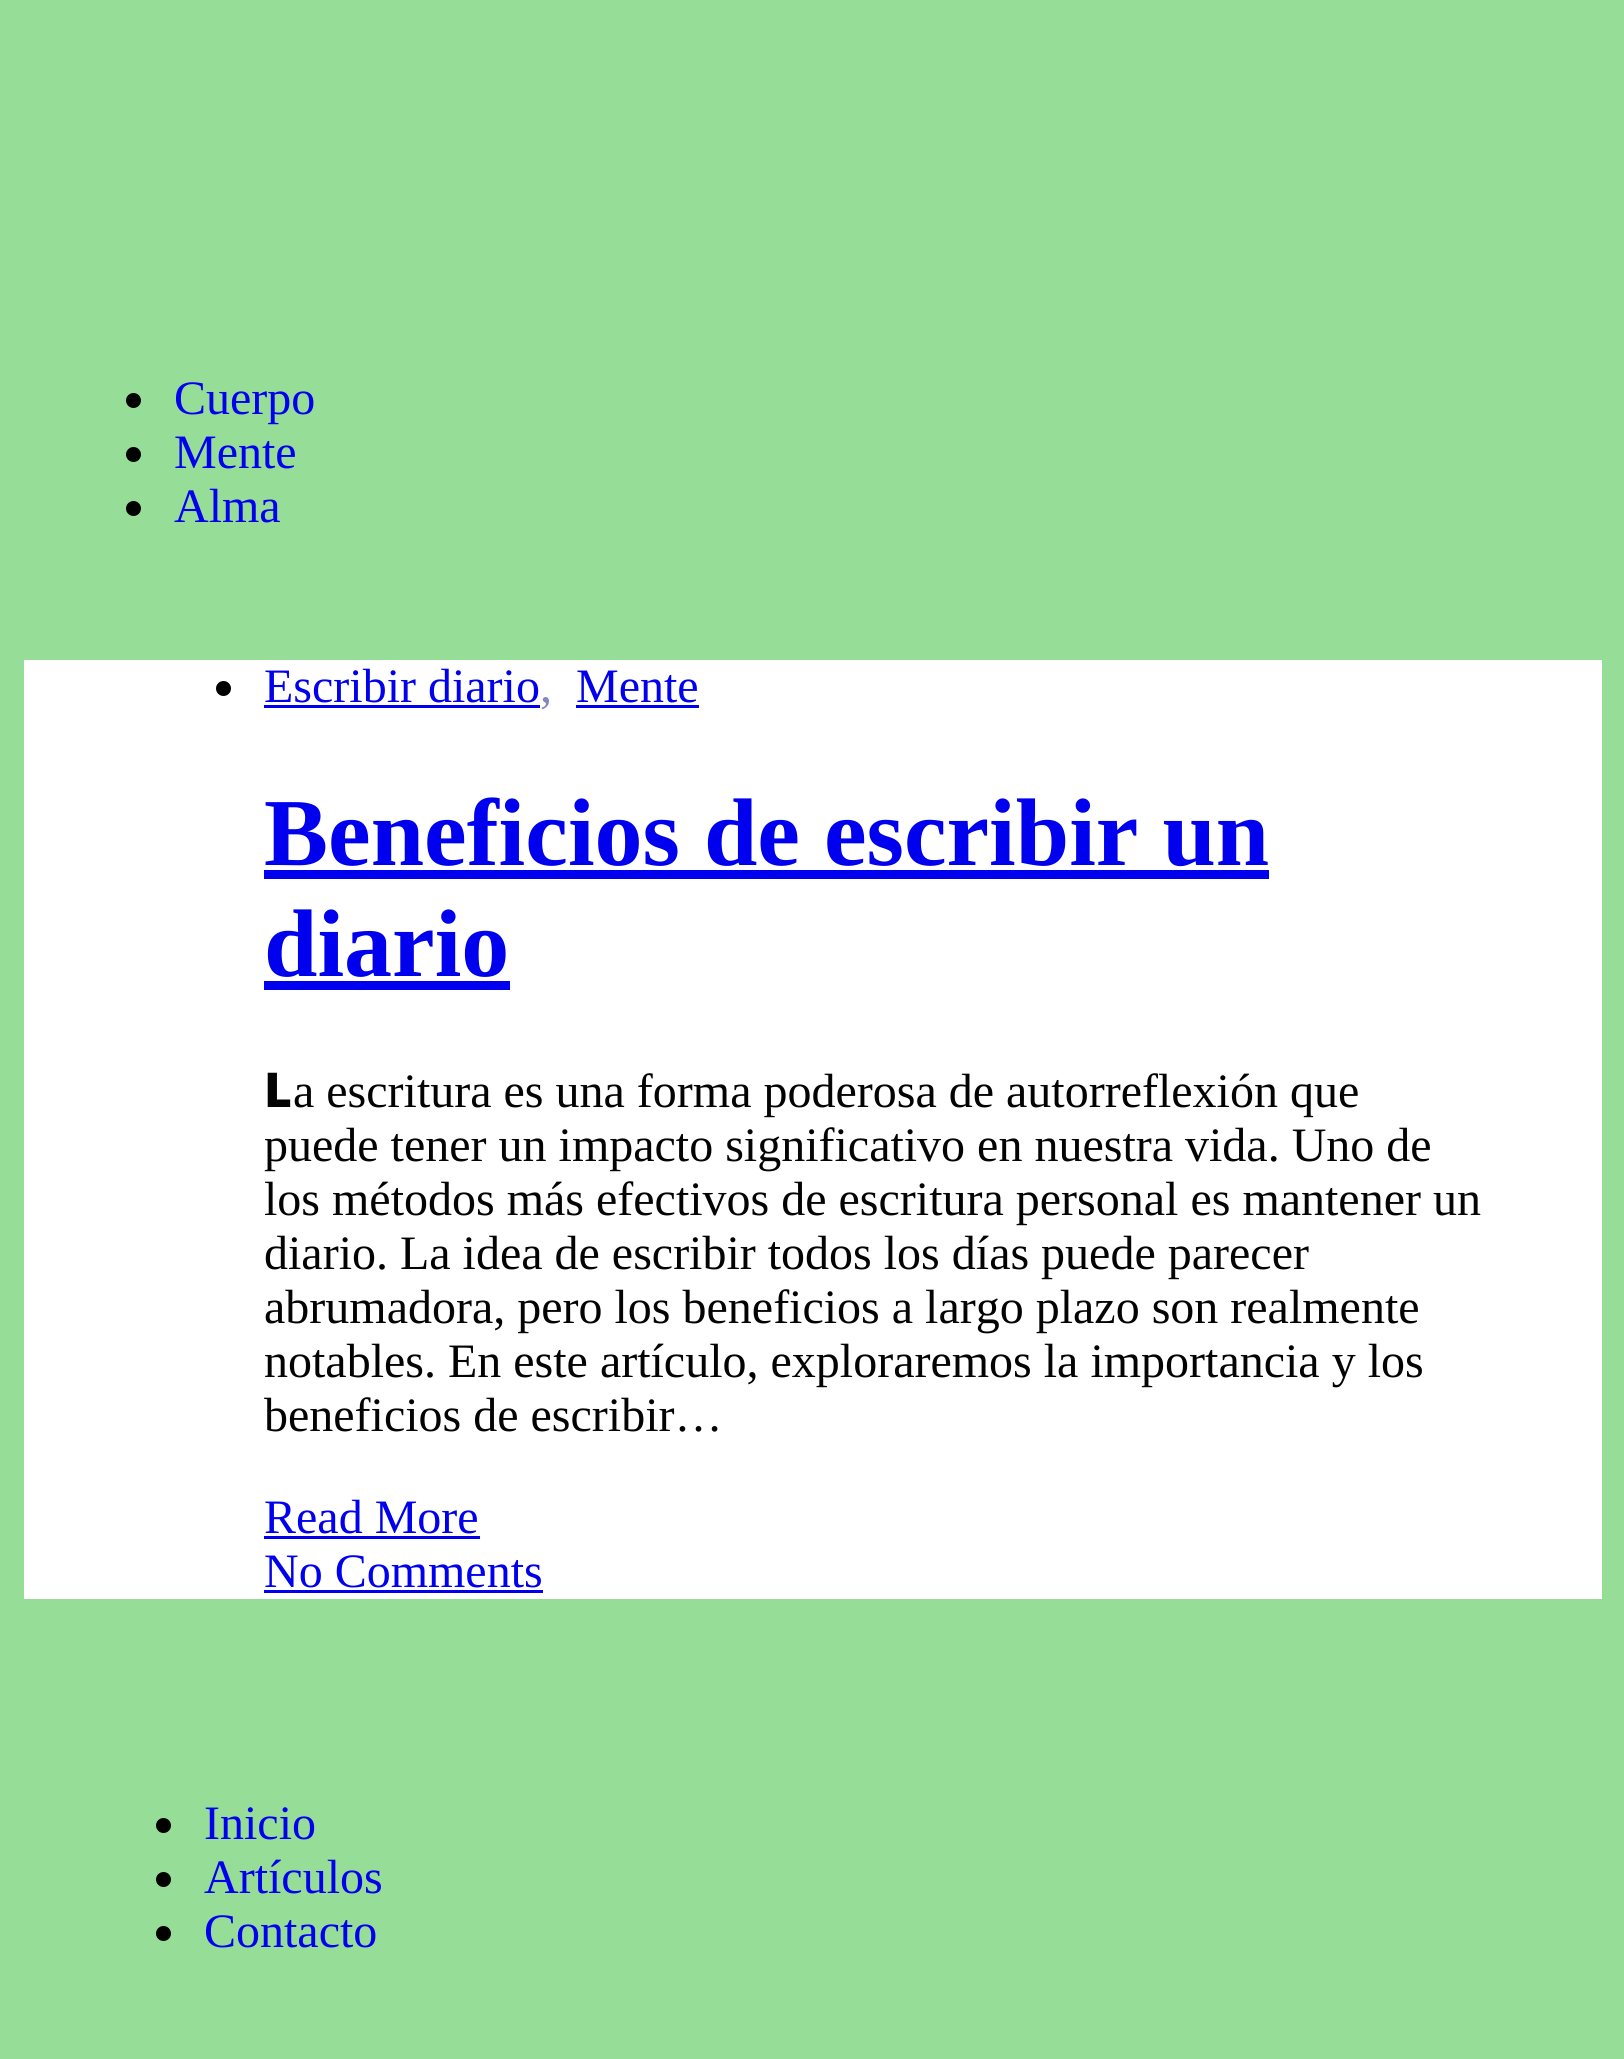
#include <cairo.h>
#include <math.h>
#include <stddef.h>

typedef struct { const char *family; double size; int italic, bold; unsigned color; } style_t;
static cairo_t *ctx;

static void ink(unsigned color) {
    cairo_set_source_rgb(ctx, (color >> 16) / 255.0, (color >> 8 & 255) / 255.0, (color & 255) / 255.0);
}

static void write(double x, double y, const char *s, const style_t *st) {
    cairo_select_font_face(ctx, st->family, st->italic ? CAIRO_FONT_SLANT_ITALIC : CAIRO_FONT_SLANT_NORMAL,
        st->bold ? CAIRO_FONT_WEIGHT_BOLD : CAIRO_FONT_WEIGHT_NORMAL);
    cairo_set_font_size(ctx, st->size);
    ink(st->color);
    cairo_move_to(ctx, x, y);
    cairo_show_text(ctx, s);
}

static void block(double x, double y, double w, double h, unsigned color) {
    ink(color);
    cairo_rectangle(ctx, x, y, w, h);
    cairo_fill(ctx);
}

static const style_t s1 = {"Liberation Serif", 48, 0, 0, 0x0000ee};
static const style_t s2 = {"Liberation Serif", 48, 0, 0, 0x8686ba};
static const style_t s3 = {"Liberation Serif", 96, 0, 1, 0x0000ee};
static const style_t s4 = {"Noto Sans Black", 48, 0, 0, 0x030303};
static const style_t s5 = {"Liberation Serif", 48, 0, 0, 0x030303};

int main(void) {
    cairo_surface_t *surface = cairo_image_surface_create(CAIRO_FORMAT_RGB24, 1624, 2059);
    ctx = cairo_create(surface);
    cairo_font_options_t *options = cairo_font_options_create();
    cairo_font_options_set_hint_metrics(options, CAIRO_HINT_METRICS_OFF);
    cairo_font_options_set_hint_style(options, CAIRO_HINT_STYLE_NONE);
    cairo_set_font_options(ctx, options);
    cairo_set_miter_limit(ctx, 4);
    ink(0x96dd98);
    cairo_paint(ctx);
    ink(0x000000);
    cairo_arc(ctx, 133.5, 400.5, 7.5, 0, 2 * M_PI);
    cairo_fill(ctx);
    write(174, 414, "Cuerpo", &s1);
    ink(0x000000);
    cairo_new_path(ctx);
    cairo_arc(ctx, 133.5, 454.5, 7.5, 0, 2 * M_PI);
    cairo_fill(ctx);
    write(174, 468, "Mente", &s1);
    ink(0x000000);
    cairo_new_path(ctx);
    cairo_arc(ctx, 133.5, 508.5, 7.5, 0, 2 * M_PI);
    cairo_fill(ctx);
    write(174, 522, "Alma", &s1);
    block(24, 660, 1578, 939, 0xffffff);
    ink(0x000000);
    cairo_new_path(ctx);
    cairo_arc(ctx, 223.5, 688.5, 7.5, 0, 2 * M_PI);
    cairo_fill(ctx);
    write(264, 702, "Escribir diario", &s1);
    block(264, 705, 276, 3, 0x0000ee);
    write(540, 702, ",", &s2);
    write(576, 702, "Mente", &s1);
    block(576, 705, 123, 3, 0x0000ee);
    write(264, 865, "Beneficios de escribir un", &s3);
    block(264, 870, 1005, 9, 0x0000ee);
    write(264, 976, "diario", &s3);
    block(264, 981, 246, 9, 0x0000ee);
    write(264, 1107, "L", &s4);
    write(293, 1107, "a escritura es una forma poderosa de autorreflexión que", &s5);
    write(264, 1161, "puede tener un impacto significativo en nuestra vida. Uno de", &s5);
    write(264, 1215, "los métodos más efectivos de escritura personal es mantener un", &s5);
    write(264, 1269, "diario. La idea de escribir todos los días puede parecer", &s5);
    write(264, 1323, "abrumadora, pero los beneficios a largo plazo son realmente", &s5);
    write(264, 1377, "notables. En este artículo, exploraremos la importancia y los", &s5);
    write(264, 1431, "beneficios de escribir…", &s5);
    write(264, 1533, "Read More", &s1);
    block(264, 1536, 216, 3, 0x0000ee);
    write(264, 1587, "No Comments", &s1);
    block(264, 1590, 279, 3, 0x0000ee);
    ink(0x000000);
    cairo_new_path(ctx);
    cairo_arc(ctx, 163.5, 1825.5, 7.5, 0, 2 * M_PI);
    cairo_fill(ctx);
    write(204, 1839, "Inicio", &s1);
    ink(0x000000);
    cairo_new_path(ctx);
    cairo_arc(ctx, 163.5, 1879.5, 7.5, 0, 2 * M_PI);
    cairo_fill(ctx);
    write(204, 1893, "Artículos", &s1);
    ink(0x000000);
    cairo_new_path(ctx);
    cairo_arc(ctx, 163.5, 1933.5, 7.5, 0, 2 * M_PI);
    cairo_fill(ctx);
    write(204, 1947, "Contacto", &s1);
    cairo_surface_write_to_png(surface, "screenshot.png");
    cairo_font_options_destroy(options);
    cairo_destroy(ctx);
    cairo_surface_destroy(surface);
    return 0;
}
